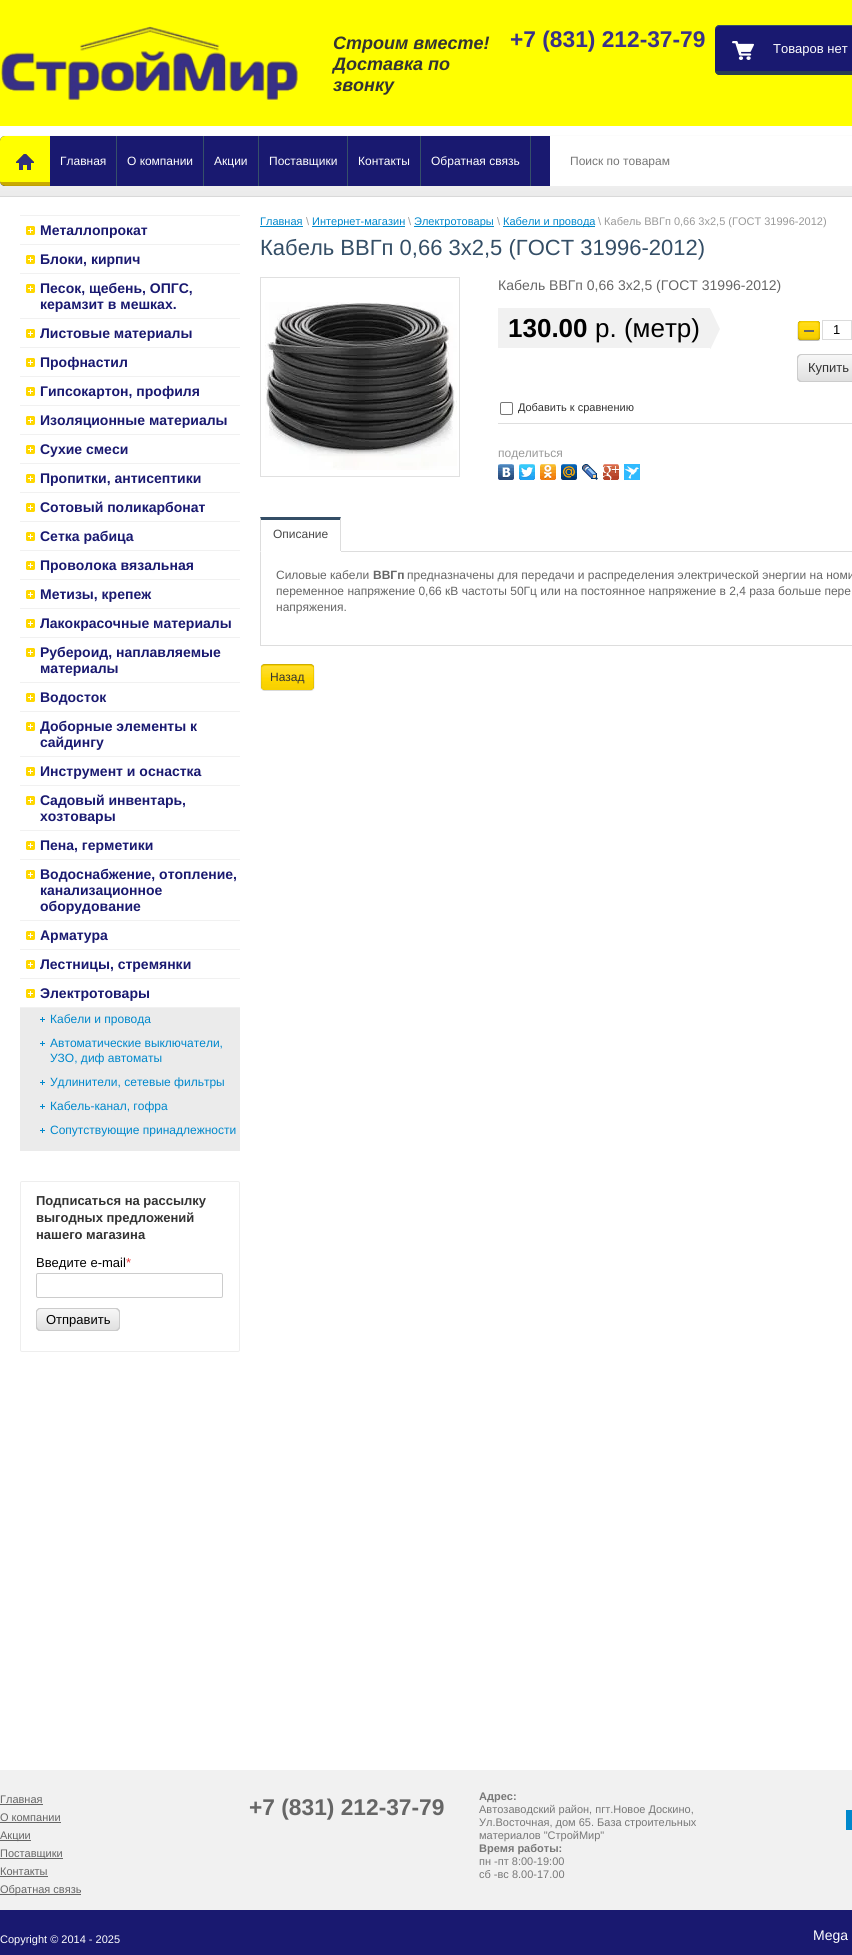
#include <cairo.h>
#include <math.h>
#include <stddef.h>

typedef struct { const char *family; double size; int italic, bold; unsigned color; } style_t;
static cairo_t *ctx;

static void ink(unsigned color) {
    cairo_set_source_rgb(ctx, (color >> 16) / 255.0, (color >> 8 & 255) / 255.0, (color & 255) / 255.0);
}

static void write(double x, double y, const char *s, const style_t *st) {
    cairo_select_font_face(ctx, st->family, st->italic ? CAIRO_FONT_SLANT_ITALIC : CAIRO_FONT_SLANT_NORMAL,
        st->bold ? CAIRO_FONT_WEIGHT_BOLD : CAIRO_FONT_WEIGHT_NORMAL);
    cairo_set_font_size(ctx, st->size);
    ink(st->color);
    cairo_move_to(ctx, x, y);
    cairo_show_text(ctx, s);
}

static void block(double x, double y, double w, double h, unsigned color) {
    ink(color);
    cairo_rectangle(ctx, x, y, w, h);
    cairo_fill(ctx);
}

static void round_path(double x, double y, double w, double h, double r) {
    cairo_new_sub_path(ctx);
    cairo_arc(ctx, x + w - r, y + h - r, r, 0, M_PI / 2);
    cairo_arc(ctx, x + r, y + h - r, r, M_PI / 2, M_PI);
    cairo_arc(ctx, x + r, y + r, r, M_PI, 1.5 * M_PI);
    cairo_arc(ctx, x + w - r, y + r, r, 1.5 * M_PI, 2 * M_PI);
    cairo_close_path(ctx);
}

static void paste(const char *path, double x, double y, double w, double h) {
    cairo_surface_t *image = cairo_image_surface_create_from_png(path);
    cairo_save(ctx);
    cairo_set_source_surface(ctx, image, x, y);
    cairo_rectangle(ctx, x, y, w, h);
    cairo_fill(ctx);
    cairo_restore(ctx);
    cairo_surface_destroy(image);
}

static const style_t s1 = {"Liberation Sans", 18, 1, 1, 0x333333};
static const style_t s2 = {"Liberation Sans", 22.75, 0, 1, 0x393188};
static const style_t s3 = {"Liberation Sans", 13, 0, 0, 0xffffff};
static const style_t s4 = {"Liberation Sans", 12, 0, 0, 0xffffff};
static const style_t s5 = {"Liberation Sans", 12, 0, 0, 0x777777};
static const style_t s6 = {"Liberation Sans", 14, 0, 1, 0x191970};
static const style_t s7 = {"Liberation Sans", 12, 0, 0, 0x0088cc};
static const style_t s8 = {"Liberation Sans", 13, 0, 1, 0x333333};
static const style_t s9 = {"Liberation Sans", 13, 0, 0, 0x000000};
static const style_t s10 = {"Liberation Sans", 13, 0, 0, 0xeb3c3c};
static const style_t s11 = {"Liberation Sans", 11, 0, 0, 0x0088cc};
static const style_t s12 = {"Liberation Sans", 11, 0, 0, 0x999999};
static const style_t s13 = {"Liberation Sans", 22, 0, 0, 0x344e66};
static const style_t s14 = {"Liberation Sans", 14, 0, 0, 0x666666};
static const style_t s15 = {"Liberation Sans", 26, 0, 1, 0x000000};
static const style_t s16 = {"Liberation Sans", 26, 0, 0, 0x000000};
static const style_t s17 = {"Liberation Sans", 13, 0, 0, 0x333333};
static const style_t s18 = {"Liberation Sans", 11, 0, 0, 0x333333};
static const style_t s19 = {"Liberation Sans", 12, 0, 0, 0x999999};
static const style_t s20 = {"Liberation Sans", 12, 0, 0, 0x494949};
static const style_t s21 = {"Liberation Sans", 12, 0, 0, 0x666666};
static const style_t s22 = {"Liberation Sans", 12, 0, 1, 0x666666};
static const style_t s23 = {"Liberation Sans", 12, 0, 0, 0x333333};
static const style_t s24 = {"Liberation Sans", 11, 0, 0, 0x666666};
static const style_t s25 = {"Liberation Sans", 22.75, 0, 1, 0x666666};
static const style_t s26 = {"Liberation Sans", 11, 0, 1, 0x777777};
static const style_t s27 = {"Liberation Sans", 11, 0, 0, 0x777777};
static const style_t s28 = {"Liberation Sans", 11, 0, 0, 0xffffff};
static const style_t s29 = {"Liberation Sans", 14, 0, 0, 0xffffff};

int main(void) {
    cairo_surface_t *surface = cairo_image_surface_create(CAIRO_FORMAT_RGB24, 852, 1955);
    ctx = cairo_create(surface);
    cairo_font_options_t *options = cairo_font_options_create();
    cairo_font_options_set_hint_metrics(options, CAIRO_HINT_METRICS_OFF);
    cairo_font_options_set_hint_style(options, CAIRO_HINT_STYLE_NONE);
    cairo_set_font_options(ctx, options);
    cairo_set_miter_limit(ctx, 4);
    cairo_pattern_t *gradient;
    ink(0xffffff);
    cairo_paint(ctx);
    block(0, 0, 852, 126, 0xffff00);
    paste("pic1.png", 1, 26, 297, 75);
    write(333, 49, "Строим вместе!", &s1);
    write(333, 70, "Доставка по", &s1);
    write(333, 91, "звонку", &s1);
    write(510, 47, "+7 (831) 212-37-79", &s2);
    ink(0x191970);
    cairo_new_path(ctx);
    cairo_move_to(ctx, 720, 25);
    cairo_line_to(ctx, 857, 25);
    cairo_line_to(ctx, 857, 75);
    cairo_line_to(ctx, 720, 75);
    cairo_curve_to(ctx, 717, 75, 715, 73, 715, 70);
    cairo_line_to(ctx, 715, 30);
    cairo_curve_to(ctx, 715, 27, 717, 25, 720, 25);
    cairo_close_path(ctx);
    cairo_fill(ctx);
    ink(0x36526a);
    cairo_new_path(ctx);
    cairo_move_to(ctx, 720, 26);
    cairo_line_to(ctx, 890, 26);
    cairo_line_to(ctx, 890, 25);
    cairo_line_to(ctx, 720, 25);
    cairo_curve_to(ctx, 717, 25, 715, 27, 715, 30);
    cairo_curve_to(ctx, 715, 28, 717, 26, 720, 26);
    cairo_close_path(ctx);
    cairo_fill(ctx);
    ink(0x2a3f52);
    cairo_new_path(ctx);
    cairo_move_to(ctx, 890, 75);
    cairo_line_to(ctx, 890, 71);
    cairo_line_to(ctx, 720, 71);
    cairo_curve_to(ctx, 717, 71, 715, 71, 715, 70);
    cairo_curve_to(ctx, 715, 73, 717, 75, 720, 75);
    cairo_close_path(ctx);
    cairo_fill(ctx);
    paste("pic2.png", 732, 41, 22, 19);
    write(773, 53, "Товаров нет", &s3);
    gradient = cairo_pattern_create_linear(426, 126, 426, 196);
    cairo_pattern_add_color_stop_rgba(gradient, 0, 1, 1, 1, 1);
    cairo_pattern_add_color_stop_rgba(gradient, 1, 0.922, 0.922, 0.922, 1);
    cairo_set_source(ctx, gradient);
    cairo_pattern_destroy(gradient);
    cairo_rectangle(ctx, 0, 135, 852, 61);
    cairo_fill(ctx);
    block(0, 196, 852, 1, 0xd9d9d9);
    ink(0x191970);
    round_path(0, 136, 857, 50, 5);
    cairo_fill(ctx);
    paste("pic3.png", 0, 136, 50, 50);
    block(116, 136, 1, 50, 0x365069);
    write(60, 165, "Главная", &s4);
    block(203, 136, 1, 50, 0x365069);
    write(127, 165, "О компании", &s4);
    block(258, 136, 1, 50, 0x365069);
    write(214, 165, "Акции", &s4);
    block(347, 136, 1, 50, 0x365069);
    write(269, 165, "Поставщики", &s4);
    block(420, 136, 1, 50, 0x365069);
    write(358, 165, "Контакты", &s4);
    block(530, 136, 1, 50, 0x365069);
    write(431, 165, "Обратная связь", &s4);
    block(550, 136, 302, 50, 0xffffff);
    write(570, 165, "Поиск по товарам", &s5);
    block(20, 215, 220, 1, 0xf1f1f1);
    paste("pic4.png", 26, 226, 9, 9);
    block(20, 244, 220, 1, 0xf1f1f1);
    write(40, 235, "Металлопрокат", &s6);
    paste("pic4.png", 26, 255, 9, 9);
    block(20, 273, 220, 1, 0xf1f1f1);
    write(40, 264, "Блоки, кирпич", &s6);
    paste("pic4.png", 26, 284, 9, 9);
    block(20, 318, 220, 1, 0xf1f1f1);
    write(40, 293, "Песок, щебень, ОПГС,", &s6);
    write(40, 309, "керамзит в мешках.", &s6);
    paste("pic4.png", 26, 329, 9, 9);
    block(20, 347, 220, 1, 0xf1f1f1);
    write(40, 338, "Листовые материалы", &s6);
    paste("pic4.png", 26, 358, 9, 9);
    block(20, 376, 220, 1, 0xf1f1f1);
    write(40, 367, "Профнастил", &s6);
    paste("pic4.png", 26, 387, 9, 9);
    block(20, 405, 220, 1, 0xf1f1f1);
    write(40, 396, "Гипсокартон, профиля", &s6);
    paste("pic4.png", 26, 416, 9, 9);
    block(20, 434, 220, 1, 0xf1f1f1);
    write(40, 425, "Изоляционные материалы", &s6);
    paste("pic4.png", 26, 445, 9, 9);
    block(20, 463, 220, 1, 0xf1f1f1);
    write(40, 454, "Сухие смеси", &s6);
    paste("pic4.png", 26, 474, 9, 9);
    block(20, 492, 220, 1, 0xf1f1f1);
    write(40, 483, "Пропитки, антисептики", &s6);
    paste("pic4.png", 26, 503, 9, 9);
    block(20, 521, 220, 1, 0xf1f1f1);
    write(40, 512, "Сотовый поликарбонат", &s6);
    paste("pic4.png", 26, 532, 9, 9);
    block(20, 550, 220, 1, 0xf1f1f1);
    write(40, 541, "Сетка рабица", &s6);
    paste("pic4.png", 26, 561, 9, 9);
    block(20, 579, 220, 1, 0xf1f1f1);
    write(40, 570, "Проволока вязальная", &s6);
    paste("pic4.png", 26, 590, 9, 9);
    block(20, 608, 220, 1, 0xf1f1f1);
    write(40, 599, "Метизы, крепеж", &s6);
    paste("pic4.png", 26, 619, 9, 9);
    block(20, 637, 220, 1, 0xf1f1f1);
    write(40, 628, "Лакокрасочные материалы", &s6);
    paste("pic4.png", 26, 648, 9, 9);
    block(20, 682, 220, 1, 0xf1f1f1);
    write(40, 657, "Рубероид, наплавляемые", &s6);
    write(40, 673, "материалы", &s6);
    paste("pic4.png", 26, 693, 9, 9);
    block(20, 711, 220, 1, 0xf1f1f1);
    write(40, 702, "Водосток", &s6);
    paste("pic4.png", 26, 722, 9, 9);
    block(20, 756, 220, 1, 0xf1f1f1);
    write(40, 731, "Доборные элементы к", &s6);
    write(40, 747, "сайдингу", &s6);
    paste("pic4.png", 26, 767, 9, 9);
    block(20, 785, 220, 1, 0xf1f1f1);
    write(40, 776, "Инструмент и оснастка", &s6);
    paste("pic4.png", 26, 796, 9, 9);
    block(20, 830, 220, 1, 0xf1f1f1);
    write(40, 805, "Садовый инвентарь,", &s6);
    write(40, 821, "хозтовары", &s6);
    paste("pic4.png", 26, 841, 9, 9);
    block(20, 859, 220, 1, 0xf1f1f1);
    write(40, 850, "Пена, герметики", &s6);
    paste("pic4.png", 26, 870, 9, 9);
    block(20, 920, 220, 1, 0xf1f1f1);
    write(40, 879, "Водоснабжение, отопление,", &s6);
    write(40, 895, "канализационное", &s6);
    write(40, 911, "оборудование", &s6);
    paste("pic4.png", 26, 931, 9, 9);
    block(20, 949, 220, 1, 0xf1f1f1);
    write(40, 940, "Арматура", &s6);
    paste("pic4.png", 26, 960, 9, 9);
    block(20, 978, 220, 1, 0xf1f1f1);
    write(40, 969, "Лестницы, стремянки", &s6);
    paste("pic4.png", 26, 989, 9, 9);
    block(20, 1007, 220, 1, 0xf1f1f1);
    write(40, 998, "Электротовары", &s6);
    block(20, 1008, 220, 143, 0xebebeb);
    paste("pic5.png", 40, 1017, 5, 5);
    write(50, 1023, "Кабели и провода", &s7);
    paste("pic5.png", 40, 1041, 5, 5);
    write(50, 1047, "Автоматические выключатели,", &s7);
    write(50, 1062, "УЗО, диф автоматы", &s7);
    paste("pic5.png", 40, 1080, 5, 5);
    write(50, 1086, "Удлинители, сетевые фильтры", &s7);
    paste("pic5.png", 40, 1104, 5, 5);
    write(50, 1110, "Кабель-канал, гофра", &s7);
    paste("pic5.png", 40, 1128, 5, 5);
    write(50, 1134, "Сопутствующие принадлежности", &s7);
    round_path(20.5, 1181.5, 219, 170, 1.5);
    ink(0xeeeeee);
    cairo_set_line_width(ctx, 1);
    cairo_stroke(ctx);
    write(36, 1205, "Подписаться на рассылку", &s8);
    write(36, 1222, "выгодных предложений", &s8);
    write(36, 1239, "нашего магазина", &s8);
    write(36, 1267, "Введите e-mail", &s9);
    write(126, 1267, "*", &s10);
    round_path(36.5, 1273.5, 186, 24, 1.5);
    ink(0xcccccc);
    cairo_stroke(ctx);
    gradient = cairo_pattern_create_linear(78, 1308, 78, 1331);
    cairo_pattern_add_color_stop_rgba(gradient, 0, 0.973, 0.973, 0.973, 1);
    cairo_pattern_add_color_stop_rgba(gradient, 1, 0.875, 0.875, 0.875, 1);
    cairo_set_source(ctx, gradient);
    cairo_pattern_destroy(gradient);
    round_path(36, 1308, 84, 23, 4);
    cairo_fill(ctx);
    ink(0xcccccc);
    cairo_new_path(ctx);
    cairo_move_to(ctx, 38, 1309);
    cairo_curve_to(ctx, 37, 1309, 36, 1311, 36, 1312);
    cairo_line_to(ctx, 36, 1327);
    cairo_curve_to(ctx, 36, 1329, 38, 1331, 40, 1331);
    cairo_line_to(ctx, 116, 1331);
    cairo_curve_to(ctx, 117, 1331, 119, 1330, 119, 1329);
    cairo_line_to(ctx, 117, 1330);
    cairo_line_to(ctx, 41, 1330);
    cairo_curve_to(ctx, 39, 1330, 37, 1328, 37, 1326);
    cairo_line_to(ctx, 37, 1311);
    cairo_close_path(ctx);
    cairo_fill(ctx);
    cairo_new_path(ctx);
    cairo_move_to(ctx, 39, 1309);
    cairo_line_to(ctx, 115, 1309);
    cairo_curve_to(ctx, 117, 1309, 119, 1311, 119, 1313);
    cairo_line_to(ctx, 119, 1328);
    cairo_line_to(ctx, 118, 1330);
    cairo_curve_to(ctx, 119, 1330, 120, 1328, 120, 1327);
    cairo_line_to(ctx, 120, 1312);
    cairo_curve_to(ctx, 120, 1310, 118, 1308, 116, 1308);
    cairo_line_to(ctx, 40, 1308);
    cairo_curve_to(ctx, 39, 1308, 37, 1309, 37, 1310);
    cairo_close_path(ctx);
    cairo_fill(ctx);
    cairo_new_path(ctx);
    cairo_move_to(ctx, 37, 1329);
    cairo_curve_to(ctx, 37, 1330, 39, 1331, 40, 1331);
    cairo_line_to(ctx, 116, 1331);
    cairo_curve_to(ctx, 118, 1331, 120, 1329, 120, 1327);
    cairo_line_to(ctx, 120, 1312);
    cairo_curve_to(ctx, 120, 1311, 119, 1309, 118, 1309);
    cairo_line_to(ctx, 119, 1311);
    cairo_line_to(ctx, 119, 1326);
    cairo_curve_to(ctx, 119, 1328, 117, 1330, 115, 1330);
    cairo_line_to(ctx, 39, 1330);
    cairo_close_path(ctx);
    cairo_fill(ctx);
    cairo_new_path(ctx);
    cairo_move_to(ctx, 41, 1309);
    cairo_line_to(ctx, 117, 1309);
    cairo_line_to(ctx, 119, 1310);
    cairo_curve_to(ctx, 119, 1309, 117, 1308, 116, 1308);
    cairo_line_to(ctx, 40, 1308);
    cairo_curve_to(ctx, 38, 1308, 36, 1310, 36, 1312);
    cairo_line_to(ctx, 36, 1327);
    cairo_curve_to(ctx, 36, 1328, 37, 1330, 38, 1330);
    cairo_curve_to(ctx, 36, 1328, 37, 1323, 37, 1320);
    cairo_curve_to(ctx, 37, 1317, 35, 1309, 41, 1309);
    cairo_close_path(ctx);
    cairo_fill(ctx);
    write(46, 1324, "Отправить", &s9);
    write(260, 225, "Главная", &s11);
    block(260, 226, 43, 1, 0x0088cc);
    write(306, 225, "\\", &s12);
    block(312, 226, 93, 1, 0x0088cc);
    write(312, 225, "Интернет-магазин", &s11);
    write(408, 225, "\\", &s12);
    block(414, 226, 80, 1, 0x0088cc);
    write(414, 225, "Электротовары", &s11);
    write(497, 225, "\\", &s12);
    block(503, 226, 92, 1, 0x0088cc);
    write(503, 225, "Кабели и провода", &s11);
    write(598, 225, "\\ Кабель ВВГп 0,66 3х2,5 (ГОСТ 31996-2012)", &s12);
    write(260, 255, "Кабель ВВГп 0,66 3х2,5 (ГОСТ 31996-2012)", &s13);
    cairo_rectangle(ctx, 260.5, 277.5, 199, 199);
    ink(0xe0e0e0);
    cairo_stroke(ctx);
    paste("pic6.png", 265, 302, 192, 168);
    write(498, 290, "Кабель ВВГп 0,66 3х2,5 (ГОСТ 31996-2012)", &s14);
    block(498, 308, 212, 40, 0xf1f1f1);
    write(508, 337, "130.00", &s15);
    write(595, 337, "р. (метр)", &s16);
    paste("pic7.png", 710, 309, 10, 40);
    paste("pic8.png", 797, 321, 23, 20);
    cairo_rectangle(ctx, 822.5, 320.5, 29, 19);
    ink(0xdbdbdb);
    cairo_stroke(ctx);
    write(833, 334, "1", &s9);
    gradient = cairo_pattern_create_linear(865, 354, 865, 382);
    cairo_pattern_add_color_stop_rgba(gradient, 0, 0.973, 0.973, 0.973, 1);
    cairo_pattern_add_color_stop_rgba(gradient, 1, 0.875, 0.875, 0.875, 1);
    cairo_set_source(ctx, gradient);
    cairo_pattern_destroy(gradient);
    round_path(797, 354, 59, 28, 4);
    cairo_fill(ctx);
    ink(0xcccccc);
    cairo_new_path(ctx);
    cairo_move_to(ctx, 799, 355);
    cairo_curve_to(ctx, 798, 355, 797, 357, 797, 358);
    cairo_line_to(ctx, 797, 378);
    cairo_curve_to(ctx, 797, 380, 799, 382, 801, 382);
    cairo_line_to(ctx, 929, 382);
    cairo_curve_to(ctx, 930, 382, 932, 381, 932, 380);
    cairo_line_to(ctx, 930, 381);
    cairo_line_to(ctx, 802, 381);
    cairo_curve_to(ctx, 800, 381, 798, 379, 798, 377);
    cairo_line_to(ctx, 798, 357);
    cairo_close_path(ctx);
    cairo_fill(ctx);
    cairo_new_path(ctx);
    cairo_move_to(ctx, 798, 380);
    cairo_curve_to(ctx, 798, 381, 800, 382, 801, 382);
    cairo_line_to(ctx, 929, 382);
    cairo_curve_to(ctx, 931, 382, 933, 380, 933, 378);
    cairo_line_to(ctx, 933, 358);
    cairo_curve_to(ctx, 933, 357, 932, 355, 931, 355);
    cairo_line_to(ctx, 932, 357);
    cairo_line_to(ctx, 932, 377);
    cairo_curve_to(ctx, 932, 379, 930, 381, 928, 381);
    cairo_line_to(ctx, 800, 381);
    cairo_close_path(ctx);
    cairo_fill(ctx);
    cairo_new_path(ctx);
    cairo_move_to(ctx, 802, 355);
    cairo_line_to(ctx, 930, 355);
    cairo_line_to(ctx, 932, 356);
    cairo_curve_to(ctx, 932, 355, 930, 354, 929, 354);
    cairo_line_to(ctx, 801, 354);
    cairo_curve_to(ctx, 799, 354, 797, 356, 797, 358);
    cairo_line_to(ctx, 797, 378);
    cairo_curve_to(ctx, 797, 379, 798, 381, 799, 381);
    cairo_curve_to(ctx, 797, 379, 798, 372, 798, 369);
    cairo_curve_to(ctx, 798, 366, 796, 355, 802, 355);
    cairo_close_path(ctx);
    cairo_fill(ctx);
    write(808, 372, "Купить", &s17);
    block(498, 423, 354, 1, 0xdedede);
    round_path(500.5, 402.5, 12, 12, 1.5);
    ink(0x767676);
    cairo_stroke(ctx);
    write(518, 411, "Добавить к сравнению", &s18);
    write(498, 457, "поделиться", &s19);
    paste("pic9.png", 498, 464, 16, 16);
    paste("pic10.png", 519, 464, 16, 16);
    paste("pic11.png", 540, 464, 16, 16);
    paste("pic12.png", 561, 464, 16, 16);
    paste("pic13.png", 582, 464, 16, 16);
    paste("pic14.png", 603, 464, 16, 16);
    paste("pic15.png", 624, 464, 16, 16);
    block(341, 551, 511, 1, 0xdddddd);
    ink(0x344e66);
    cairo_new_path(ctx);
    cairo_move_to(ctx, 260, 517);
    cairo_line_to(ctx, 341, 517);
    cairo_line_to(ctx, 340, 520);
    cairo_line_to(ctx, 261, 520);
    cairo_close_path(ctx);
    cairo_fill(ctx);
    ink(0xdddddd);
    cairo_new_path(ctx);
    cairo_move_to(ctx, 341, 517);
    cairo_line_to(ctx, 341, 552);
    cairo_line_to(ctx, 340, 551);
    cairo_line_to(ctx, 340, 520);
    cairo_close_path(ctx);
    cairo_fill(ctx);
    block(340, 551, 1, 1, 0xffffff);
    ink(0xdddddd);
    cairo_new_path(ctx);
    cairo_move_to(ctx, 260, 552);
    cairo_line_to(ctx, 260, 517);
    cairo_line_to(ctx, 261, 520);
    cairo_line_to(ctx, 261, 551);
    cairo_close_path(ctx);
    cairo_fill(ctx);
    write(273, 538, "Описание", &s20);
    block(260, 645, 592, 1, 0xdddddd);
    block(260, 552, 1, 94, 0xdddddd);
    write(276, 579, "Силовые кабели", &s21);
    write(373, 579, "ВВГп", &s22);
    write(407, 579, "предназначены для передачи и распределения электрической энергии на номи", &s21);
    write(276, 595, "переменное напряжение 0,66 кВ частоты 50Гц или на постоянное напряжение в 2,4 раза больше пере", &s21);
    write(276, 611, "напряжения.", &s21);
    paste("pic16.png", 260, 664, 49, 27);
    write(270, 681, "Назад", &s23);
    paste("pic17.png", 309, 664, 6, 27);
    block(0, 1770, 852, 140, 0xf1f1f1);
    write(0, 1803, "Главная", &s24);
    block(0, 1804, 43, 1, 0x666666);
    write(0, 1821, "О компании", &s24);
    block(0, 1822, 61, 1, 0x666666);
    block(0, 1840, 31, 1, 0x666666);
    write(0, 1839, "Акции", &s24);
    block(0, 1858, 63, 1, 0x666666);
    write(0, 1857, "Поставщики", &s24);
    write(0, 1875, "Контакты", &s24);
    block(0, 1876, 48, 1, 0x666666);
    block(0, 1894, 81, 1, 0x666666);
    write(0, 1893, "Обратная связь", &s24);
    write(249, 1815, "+7 (831) 212-37-79", &s25);
    write(479, 1800, "Адрес:", &s26);
    write(479, 1813, "Автозаводский район, пгт.Новое Доскино,", &s27);
    write(479, 1826, "Ул.Восточная, дом 65. База строительных", &s27);
    write(479, 1839, "материалов \"СтройМир\"", &s27);
    write(479, 1852, "Время работы:", &s26);
    write(479, 1865, "пн -пт 8:00-19:00", &s27);
    write(479, 1878, "сб -вс 8.00-17.00", &s27);
    block(846, 1810, 6, 20, 0x0088cc);
    block(0, 1910, 852, 45, 0x191970);
    write(0, 1943, "Copyright © 2014 - 2025", &s28);
    write(813, 1940, "Mega", &s29);
    cairo_surface_write_to_png(surface, "screenshot.png");
    cairo_font_options_destroy(options);
    cairo_destroy(ctx);
    cairo_surface_destroy(surface);
    return 0;
}
